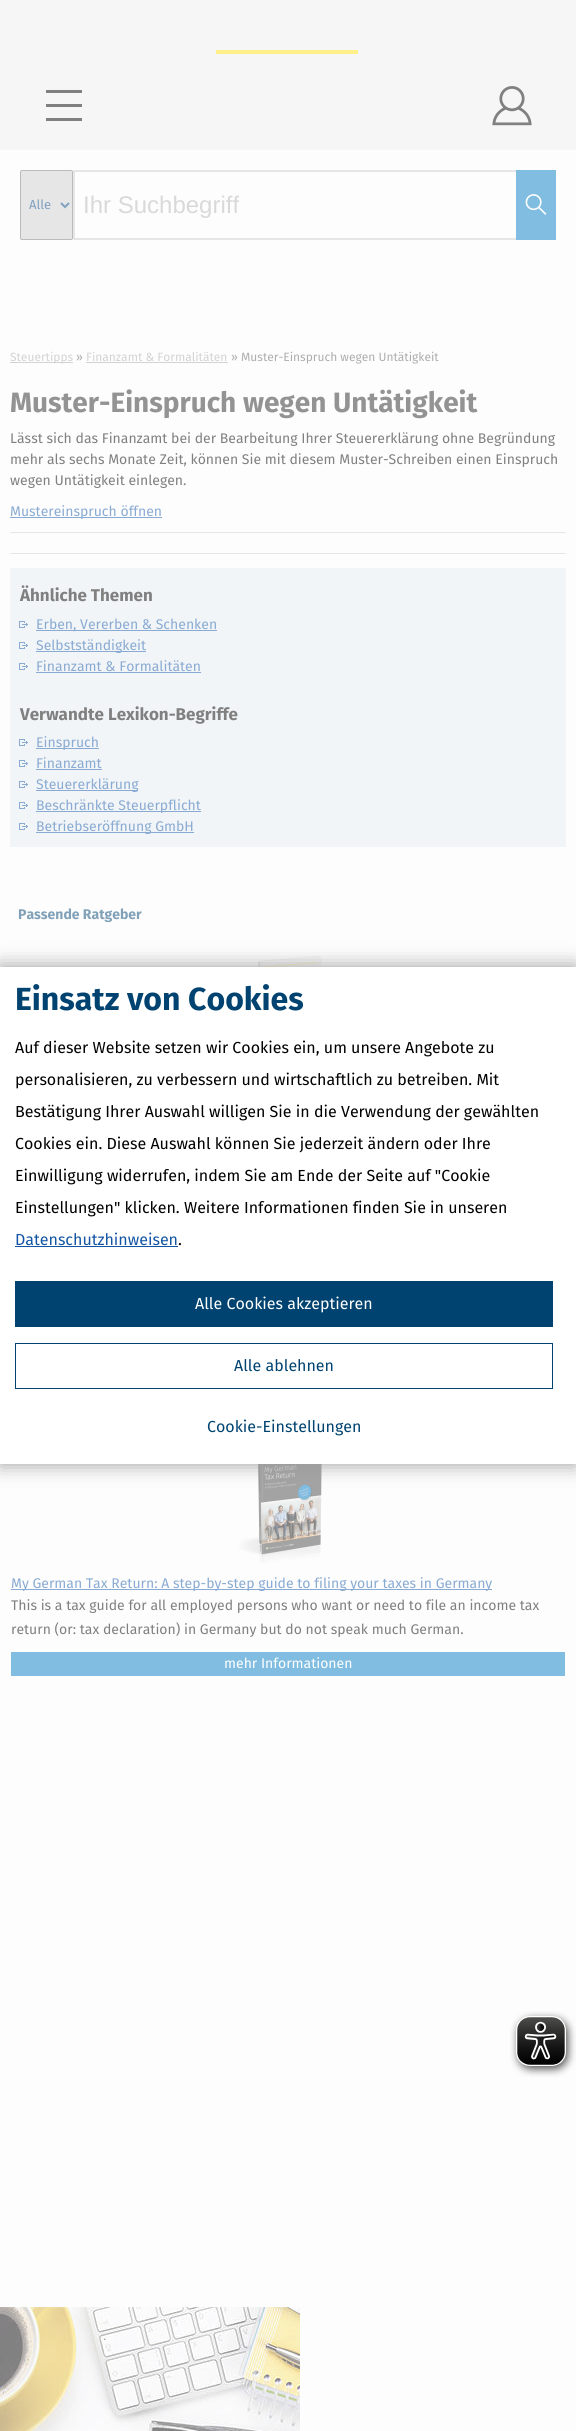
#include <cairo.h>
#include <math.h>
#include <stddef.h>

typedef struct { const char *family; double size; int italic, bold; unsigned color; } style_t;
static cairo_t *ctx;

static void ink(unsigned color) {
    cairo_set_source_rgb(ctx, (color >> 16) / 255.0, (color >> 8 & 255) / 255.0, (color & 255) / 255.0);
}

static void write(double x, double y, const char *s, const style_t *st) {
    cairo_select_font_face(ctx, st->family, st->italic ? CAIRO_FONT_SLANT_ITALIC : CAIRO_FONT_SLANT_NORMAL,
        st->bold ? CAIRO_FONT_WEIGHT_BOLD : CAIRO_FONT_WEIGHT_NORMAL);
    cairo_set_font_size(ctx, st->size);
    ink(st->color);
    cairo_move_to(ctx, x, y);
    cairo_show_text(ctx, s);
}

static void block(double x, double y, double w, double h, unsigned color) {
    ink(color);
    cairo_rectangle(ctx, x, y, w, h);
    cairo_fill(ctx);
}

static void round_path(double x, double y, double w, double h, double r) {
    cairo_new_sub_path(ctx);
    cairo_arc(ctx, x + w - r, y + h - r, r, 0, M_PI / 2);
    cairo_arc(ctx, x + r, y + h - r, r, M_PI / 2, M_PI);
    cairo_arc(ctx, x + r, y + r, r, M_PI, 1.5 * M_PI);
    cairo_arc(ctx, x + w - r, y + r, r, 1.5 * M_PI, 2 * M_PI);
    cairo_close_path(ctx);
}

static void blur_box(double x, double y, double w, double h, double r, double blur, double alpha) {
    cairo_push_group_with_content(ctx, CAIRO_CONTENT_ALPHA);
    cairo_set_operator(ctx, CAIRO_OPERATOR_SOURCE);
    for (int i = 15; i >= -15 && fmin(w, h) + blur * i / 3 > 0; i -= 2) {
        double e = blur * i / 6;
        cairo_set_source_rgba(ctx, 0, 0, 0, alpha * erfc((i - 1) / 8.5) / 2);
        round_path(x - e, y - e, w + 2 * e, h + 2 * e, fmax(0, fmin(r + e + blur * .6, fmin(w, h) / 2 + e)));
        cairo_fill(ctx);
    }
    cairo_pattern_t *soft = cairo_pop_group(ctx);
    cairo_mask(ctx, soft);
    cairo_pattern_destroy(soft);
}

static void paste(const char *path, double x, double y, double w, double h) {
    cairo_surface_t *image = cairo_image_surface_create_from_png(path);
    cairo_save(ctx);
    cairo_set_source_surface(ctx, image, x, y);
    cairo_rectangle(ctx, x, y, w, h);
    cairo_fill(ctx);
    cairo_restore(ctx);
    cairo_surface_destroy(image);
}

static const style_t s1 = {"Fira Sans", 13, 0, 0, 0x80a1c0};
static const style_t s2 = {"Liberation Sans", 24, 0, 0, 0xd9d9d9};
static const style_t s3 = {"Fira Sans", 12, 0, 0, 0xd3d3d3};
static const style_t s4 = {"Fira Sans", 12, 0, 0, 0xadadad};
static const style_t s5 = {"Fira Sans", 28, 0, 1, 0x939393};
static const style_t s6 = {"Fira Sans", 14, 0, 0, 0x808080};
static const style_t s7 = {"Fira Sans", 14, 0, 0, 0x89aad2};
static const style_t s8 = {"Fira Sans", 17, 0, 1, 0x808080};
static const style_t s9 = {"Fira Sans", 14, 0, 1, 0x80a1b8};
static const style_t s10 = {"Fira Sans", 14, 0, 0, 0xffffff};
static const style_t s11 = {"Fira Sans", 32, 0, 1, 0x004370};
static const style_t s12 = {"Fira Sans", 16, 0, 0, 0x000000};
static const style_t s13 = {"Fira Sans", 16, 0, 0, 0x1355a4};
static const style_t s14 = {"Fira Sans", 16, 0, 0, 0xffffff};
static const style_t s15 = {"Fira Sans", 16, 0, 0, 0x004370};

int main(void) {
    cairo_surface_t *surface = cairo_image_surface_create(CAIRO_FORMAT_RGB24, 576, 2431);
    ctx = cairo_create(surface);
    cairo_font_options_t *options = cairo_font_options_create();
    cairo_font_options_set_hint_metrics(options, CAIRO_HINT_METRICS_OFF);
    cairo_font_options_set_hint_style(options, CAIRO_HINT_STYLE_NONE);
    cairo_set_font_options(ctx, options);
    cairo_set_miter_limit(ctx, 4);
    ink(0xfdfdfd);
    cairo_paint(ctx);
    block(0, 0, 576, 150, 0xf6f6f6);
    block(216, 50, 142, 4, 0xfff08a);
    ink(0x808080);
    cairo_new_path(ctx);
    cairo_move_to(ctx, 46, 90);
    cairo_line_to(ctx, 46, 93);
    cairo_line_to(ctx, 82, 93);
    cairo_line_to(ctx, 82, 90);
    cairo_close_path(ctx);
    cairo_move_to(ctx, 46, 107);
    cairo_line_to(ctx, 82, 107);
    cairo_line_to(ctx, 82, 104);
    cairo_line_to(ctx, 46, 104);
    cairo_close_path(ctx);
    cairo_move_to(ctx, 46, 121);
    cairo_line_to(ctx, 82, 121);
    cairo_line_to(ctx, 82, 118);
    cairo_line_to(ctx, 46, 118);
    cairo_close_path(ctx);
    cairo_fill(ctx);
    paste("pic1.png", 492, 86, 40, 40);
    ink(0xe6e6e6);
    round_path(20.5, 170.5, 52, 69, 1.5);
    cairo_fill_preserve(ctx);
    ink(0xbbbbbb);
    cairo_set_line_width(ctx, 1);
    cairo_stroke(ctx);
    cairo_new_path(ctx);
    cairo_move_to(ctx, 61, 203);
    cairo_line_to(ctx, 65, 207);
    cairo_line_to(ctx, 69, 203);
    ink(0x80a1c0);
    cairo_set_line_width(ctx, 2);
    cairo_stroke(ctx);
    write(29, 209, "Alle", &s1);
    block(73, 170, 443, 2, 0xe6e6e6);
    block(73, 238, 443, 2, 0xe6e6e6);
    block(73, 170, 2, 70, 0xe6e6e6);
    write(83, 213, "Ihr Suchbegriff", &s2);
    block(516, 170, 40, 70, 0x80bde1);
    paste("pic2.png", 525, 194, 22, 21);
    block(10, 362, 63, 1, 0xd3d3d3);
    write(10, 361, "Steuertipps", &s3);
    write(76, 361, "»", &s4);
    write(86, 361, "Finanzamt & Formalitäten", &s3);
    block(86, 362, 142, 1, 0xd3d3d3);
    write(231, 361, "» Muster-Einspruch wegen Untätigkeit", &s4);
    write(10, 412, "Muster-Einspruch wegen Untätigkeit", &s5);
    write(10, 443, "Lässt sich das Finanzamt bei der Bearbeitung Ihrer Steuererklärung ohne Begründung", &s6);
    write(10, 464, "mehr als sechs Monate Zeit, können Sie mit diesem Muster-Schreiben einen Einspruch", &s6);
    write(10, 485, "wegen Untätigkeit einlegen.", &s6);
    block(10, 517, 152, 1, 0x89aad2);
    write(10, 516, "Mustereinspruch öffnen", &s7);
    block(10, 532, 556, 1, 0xe6e6e6);
    block(10, 553, 556, 1, 0xe6e6e6);
    block(10, 568, 556, 279, 0xf2f5f7);
    write(20, 601, "Ähnliche Themen", &s8);
    paste("pic3.png", 19, 621, 9, 7);
    block(36, 630, 181, 1, 0x89aad2);
    write(36, 629, "Erben, Vererben & Schenken", &s7);
    paste("pic3.png", 19, 642, 9, 7);
    block(36, 651, 110, 1, 0x89aad2);
    write(36, 650, "Selbstständigkeit", &s7);
    paste("pic3.png", 19, 663, 9, 7);
    write(36, 671, "Finanzamt & Formalitäten", &s7);
    block(36, 672, 165, 1, 0x89aad2);
    write(20, 720, "Verwandte Lexikon-Begriffe", &s8);
    paste("pic3.png", 19, 739, 9, 7);
    block(36, 748, 63, 1, 0x89aad2);
    write(36, 747, "Einspruch", &s7);
    paste("pic3.png", 19, 760, 9, 7);
    write(36, 768, "Finanzamt", &s7);
    block(36, 769, 66, 1, 0x89aad2);
    paste("pic3.png", 19, 781, 9, 7);
    block(36, 790, 102, 1, 0x89aad2);
    write(36, 789, "Steuererklärung", &s7);
    paste("pic3.png", 19, 802, 9, 7);
    block(36, 811, 165, 1, 0x89aad2);
    write(36, 810, "Beschränkte Steuerpflicht", &s7);
    paste("pic3.png", 19, 823, 9, 7);
    block(36, 832, 158, 1, 0x89aad2);
    write(36, 831, "Betriebseröffnung GmbH", &s7);
    write(18, 919, "Passende Ratgeber", &s9);
    paste("pic4.png", 258, 956, 64, 11);
    paste("pic5.png", 239, 1464, 83, 100);
    block(11, 1589, 481, 1, 0x89aad2);
    write(11, 1588, "My German Tax Return: A step-by-step guide to filing your taxes in Germany", &s7);
    write(11, 1610, "This is a tax guide for all employed persons who want or need to file an income tax", &s6);
    write(11, 1634, "return (or: tax declaration) in Germany but do not speak much German.", &s6);
    block(11, 1652, 554, 24, 0x80bde1);
    write(224, 1668, "mehr Informationen", &s10);
    paste("pic6.png", 0, 2307, 300, 124);
    ink(0x999999);
    blur_box(0, 967, 576, 497, 0, 10, 1);
    block(0, 967, 576, 497, 0xffffff);
    write(15, 1010, "Einsatz von Cookies", &s11);
    write(15, 1053, "Auf dieser Website setzen wir Cookies ein, um unsere Angebote zu", &s12);
    write(15, 1085, "personalisieren, zu verbessern und wirtschaftlich zu betreiben. Mit", &s12);
    write(15, 1117, "Bestätigung Ihrer Auswahl willigen Sie in die Verwendung der gewählten", &s12);
    write(15, 1149, "Cookies ein. Diese Auswahl können Sie jederzeit ändern oder Ihre", &s12);
    write(15, 1181, "Einwilligung widerrufen, indem Sie am Ende der Seite auf \"Cookie", &s12);
    write(15, 1213, "Einstellungen\" klicken. Weitere Informationen finden Sie in unseren", &s12);
    write(15, 1245, "Datenschutzhinweisen", &s13);
    block(15, 1246, 163, 1, 0x1355a4);
    write(178, 1245, ".", &s12);
    block(15, 1281, 538, 46, 0x004370);
    write(195, 1309, "Alle Cookies akzeptieren", &s14);
    cairo_rectangle(ctx, 15.5, 1343.5, 537, 45);
    ink(0x004370);
    cairo_set_line_width(ctx, 1);
    cairo_stroke(ctx);
    write(234, 1371, "Alle ablehnen", &s15);
    write(207, 1432, "Cookie-Einstellungen", &s15);
    paste("pic7.png", 510, 2011, 66, 66);
    cairo_surface_write_to_png(surface, "screenshot.png");
    cairo_font_options_destroy(options);
    cairo_destroy(ctx);
    cairo_surface_destroy(surface);
    return 0;
}
